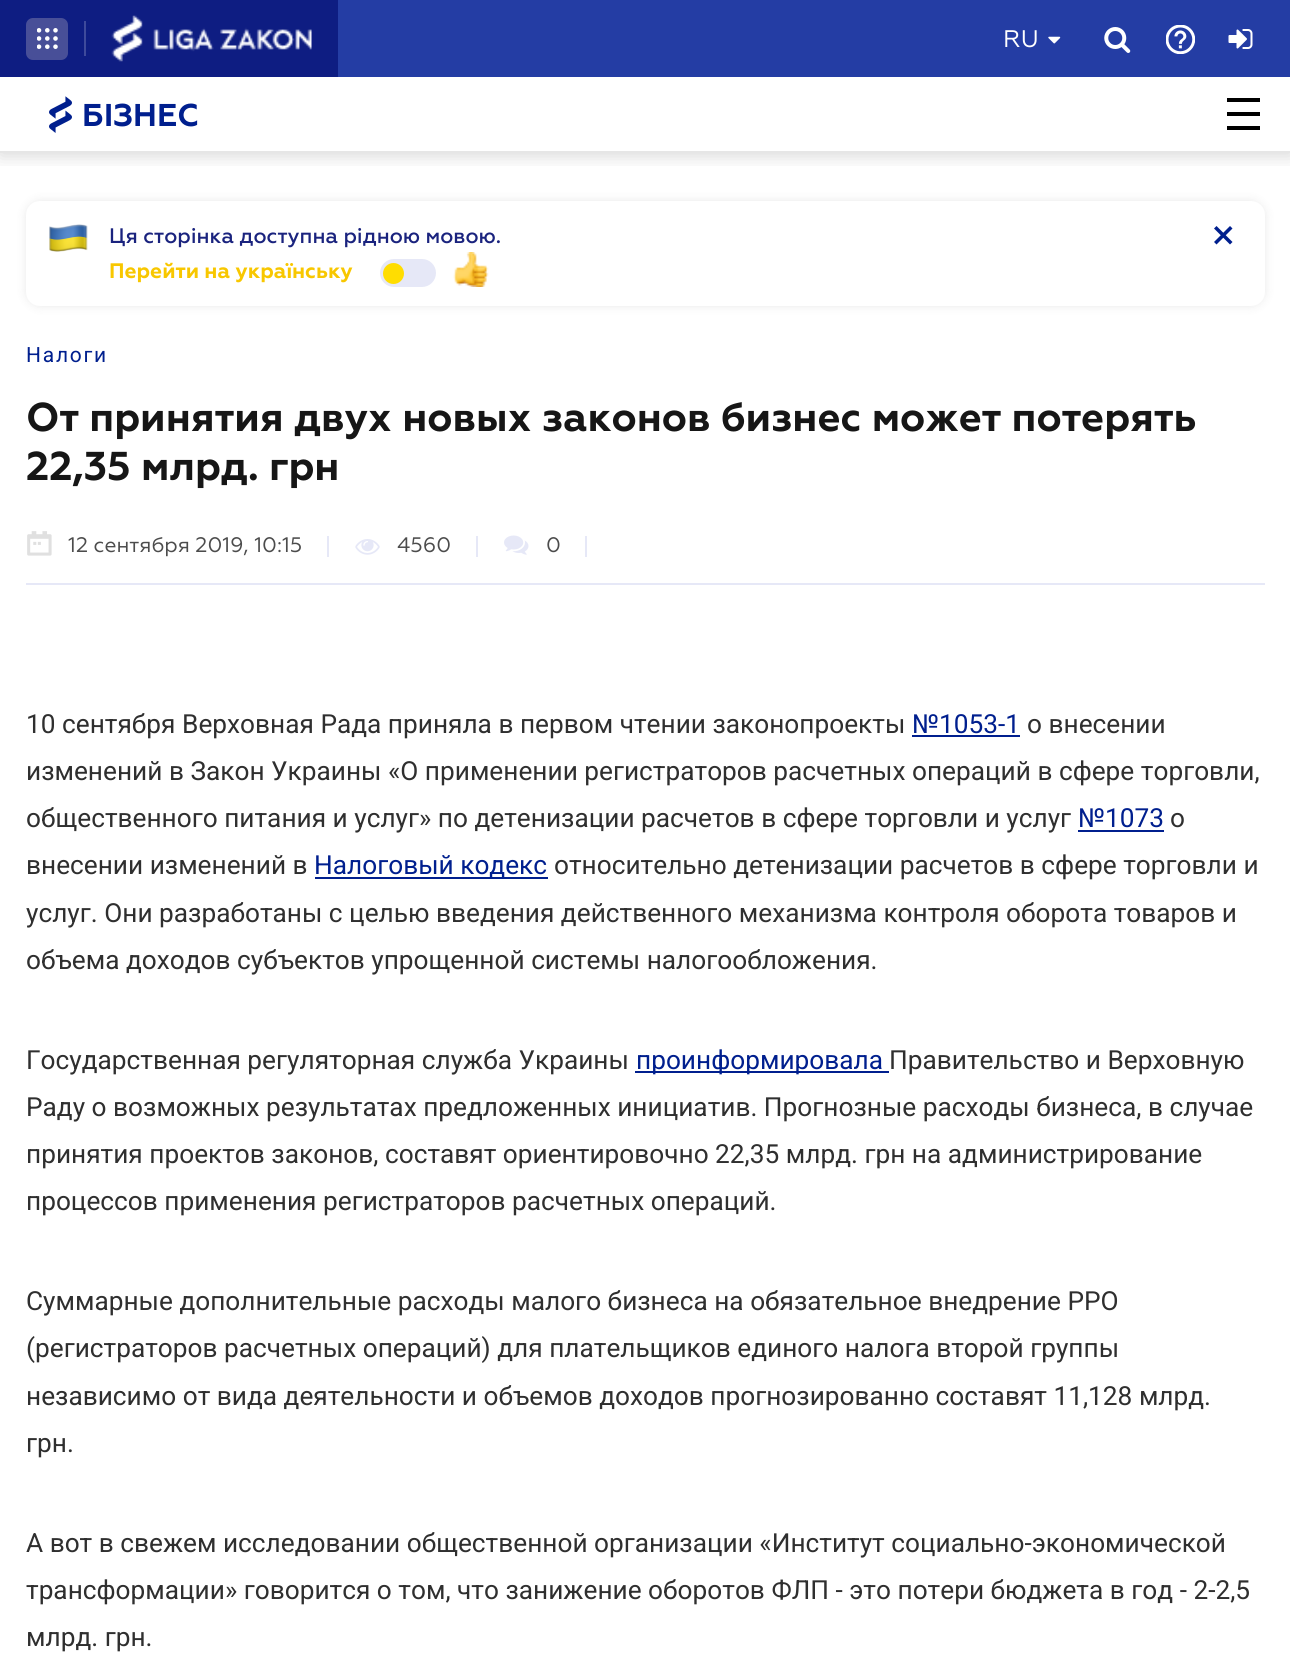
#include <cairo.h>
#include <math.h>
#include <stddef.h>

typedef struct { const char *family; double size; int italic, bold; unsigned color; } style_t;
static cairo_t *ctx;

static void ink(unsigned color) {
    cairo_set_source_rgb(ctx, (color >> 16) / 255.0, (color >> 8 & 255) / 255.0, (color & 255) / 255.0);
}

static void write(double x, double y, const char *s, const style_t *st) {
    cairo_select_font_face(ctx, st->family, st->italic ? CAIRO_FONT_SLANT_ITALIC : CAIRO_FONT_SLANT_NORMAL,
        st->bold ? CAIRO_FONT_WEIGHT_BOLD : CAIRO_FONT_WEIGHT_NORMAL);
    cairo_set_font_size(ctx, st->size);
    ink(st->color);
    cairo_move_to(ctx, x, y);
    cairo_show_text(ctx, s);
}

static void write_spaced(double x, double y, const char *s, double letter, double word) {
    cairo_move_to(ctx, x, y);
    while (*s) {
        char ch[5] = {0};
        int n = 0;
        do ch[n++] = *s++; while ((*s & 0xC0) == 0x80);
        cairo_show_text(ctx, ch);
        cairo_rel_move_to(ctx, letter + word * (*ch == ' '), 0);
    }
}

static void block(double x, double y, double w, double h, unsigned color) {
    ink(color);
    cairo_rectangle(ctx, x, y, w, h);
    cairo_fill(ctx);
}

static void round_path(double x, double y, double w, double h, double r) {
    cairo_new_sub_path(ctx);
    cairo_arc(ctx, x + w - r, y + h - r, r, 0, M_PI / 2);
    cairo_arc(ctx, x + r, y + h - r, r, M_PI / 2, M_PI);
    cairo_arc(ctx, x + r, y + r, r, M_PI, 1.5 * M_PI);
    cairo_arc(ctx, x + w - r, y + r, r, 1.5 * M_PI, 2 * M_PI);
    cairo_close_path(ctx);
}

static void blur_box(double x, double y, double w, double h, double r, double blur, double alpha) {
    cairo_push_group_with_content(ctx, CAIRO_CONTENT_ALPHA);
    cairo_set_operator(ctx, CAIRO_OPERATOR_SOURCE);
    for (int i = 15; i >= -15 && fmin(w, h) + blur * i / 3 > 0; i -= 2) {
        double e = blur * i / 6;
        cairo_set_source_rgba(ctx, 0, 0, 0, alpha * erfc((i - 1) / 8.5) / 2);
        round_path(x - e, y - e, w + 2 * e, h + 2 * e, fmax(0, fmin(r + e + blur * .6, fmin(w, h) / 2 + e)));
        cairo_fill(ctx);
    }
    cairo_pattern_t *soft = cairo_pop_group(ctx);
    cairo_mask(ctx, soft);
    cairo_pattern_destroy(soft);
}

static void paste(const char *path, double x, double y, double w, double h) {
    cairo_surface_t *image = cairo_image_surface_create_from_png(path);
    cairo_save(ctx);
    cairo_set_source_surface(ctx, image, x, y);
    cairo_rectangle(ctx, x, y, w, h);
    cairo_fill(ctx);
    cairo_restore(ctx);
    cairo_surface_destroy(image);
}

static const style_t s1 = {"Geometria", 24, 0, 0, 0xffffff};
static const style_t s2 = {"Geometria", 31.5, 0, 1, 0x001f8e};
static const style_t s3 = {"Geometria Medium", 21, 0, 0, 0x1a237e};
static const style_t s4 = {"Geometria", 21, 0, 1, 0xf8c700};
static const style_t s5 = {"Geometria", 40.25, 0, 1, 0x161616};
static const style_t s6 = {"Geometria", 21, 0, 0, 0x4c4c4c};
static const style_t s7 = {"Roboto", 26.25, 0, 0, 0x2f2f2f};
static const style_t s8 = {"Roboto", 26.25, 0, 0, 0x001f8e};

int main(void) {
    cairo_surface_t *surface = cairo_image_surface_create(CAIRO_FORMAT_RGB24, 1290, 1671);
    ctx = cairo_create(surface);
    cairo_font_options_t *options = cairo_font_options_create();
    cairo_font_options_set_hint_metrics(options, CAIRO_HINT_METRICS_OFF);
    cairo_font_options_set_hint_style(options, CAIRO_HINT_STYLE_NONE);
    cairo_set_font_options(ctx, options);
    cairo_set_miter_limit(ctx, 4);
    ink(0xffffff);
    cairo_paint(ctx);
    cairo_save(ctx);
    cairo_rectangle(ctx, 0, 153, 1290, 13);
    cairo_clip(ctx);
    ink(0x000000);
    blur_box(0, 81, 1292, 75, 0, 9, 0.15);
    cairo_restore(ctx);
    block(338, 0, 952, 77, 0x243da4);
    block(0, 0, 338, 77, 0x0e1d82);
    ink(0x484f98);
    round_path(26, 18, 42, 42, 7);
    cairo_fill(ctx);
    paste("pic1.png", 37, 28, 21, 21);
    block(84, 21, 2, 35, 0x3e4a9b);
    paste("pic2.png", 111, 15, 201, 47);
    write(1003, 47, "RU", &s1);
    paste("pic3.png", 1048, 36, 13, 8);
    paste("pic4.png", 1104, 27, 27, 26);
    paste("pic5.png", 1166, 25, 29, 29);
    paste("pic6.png", 1228, 29, 25, 20);
    block(0, 151, 1290, 2, 0xe6e6e6);
    paste("pic7.png", 49, 96, 23, 37);
    write(82, 126, "БІЗНЕС", &s2);
    block(1227, 98, 33, 4, 0x000000);
    block(1227, 112, 33, 4, 0x000000);
    block(1227, 126, 33, 4, 0x000000);
    ink(0x000000);
    blur_box(26, 201, 1239, 105, 14, 5, 0.09);
    ink(0xffffff);
    round_path(26, 201, 1239, 105, 14);
    cairo_fill(ctx);
    paste("pic8.png", 49, 224, 39, 28);
    write(109, 243, "Ця сторінка доступна рідною мовою.", &s3);
    write(109, 278, "Перейти на українську", &s4);
    ink(0xe6e8f7);
    round_path(380, 259, 56, 28, 14);
    cairo_fill(ctx);
    ink(0xffdd01);
    cairo_arc(ctx, 393.5, 273.5, 10.5, 0, 2 * M_PI);
    cairo_fill(ctx);
    paste("pic9.png", 453, 252, 36, 35);
    ink(0x001f8e);
    cairo_new_path(ctx);
    cairo_move_to(ctx, 1230, 226);
    cairo_line_to(ctx, 1232.5, 228.5);
    cairo_line_to(ctx, 1216.5, 244.5);
    cairo_line_to(ctx, 1214, 242);
    cairo_close_path(ctx);
    cairo_fill(ctx);
    cairo_new_path(ctx);
    cairo_move_to(ctx, 1214, 228.5);
    cairo_line_to(ctx, 1216.5, 226);
    cairo_line_to(ctx, 1232.5, 242);
    cairo_line_to(ctx, 1230, 244.5);
    cairo_close_path(ctx);
    cairo_fill(ctx);
    block(26, 583, 1239, 2, 0xe6e8f7);
    cairo_select_font_face(ctx, "Roboto", CAIRO_FONT_SLANT_NORMAL, CAIRO_FONT_WEIGHT_NORMAL);
    ink(0x001f8e);
    write_spaced(26, 362, "Налоги", 1.75, 0);
    write(26, 431, "От принятия двух новых законов бизнес может потерять", &s5);
    write(26, 480, "22,35 млрд. грн", &s5);
    paste("pic10.png", 27, 531, 25, 25);
    write(68, 552, "12 сентября 2019, 10:15", &s6);
    block(327, 536, 2, 21, 0xe6e8f7);
    paste("pic11.png", 355, 539, 25, 16);
    write(397, 552, "4560", &s6);
    block(476, 536, 2, 21, 0xe6e8f7);
    paste("pic12.png", 504, 535, 25, 20);
    write(546, 552, "0", &s6);
    block(585, 536, 2, 21, 0xe6e8f7);
    write(26, 733, "10 сентября Верховная Рада приняла в первом чтении законопроекты", &s7);
    write(912, 733, "№1053-1", &s8);
    block(912, 735, 108, 2, 0x001f8e);
    write(1027, 733, "о внесении", &s7);
    write(26, 780, "изменений в Закон Украины «О применении регистраторов расчетных операций в сфере торговли,", &s7);
    write(26, 827, "общественного питания и услуг» по детенизации расчетов в сфере торговли и услуг", &s7);
    write(1078, 827, "№1073", &s8);
    block(1078, 830, 86, 2, 0x001f8e);
    write(1170, 827, "о", &s7);
    write(26, 874, "внесении изменений в", &s7);
    block(315, 877, 233, 2, 0x001f8e);
    write(314, 874, "Налоговый кодекс", &s8);
    write(554, 874, "относительно детенизации расчетов в сфере торговли и", &s7);
    write(26, 922, "услуг. Они разработаны с целью введения действенного механизма контроля оборота товаров и", &s7);
    write(26, 969, "объема доходов субъектов упрощенной системы налогообложения.", &s7);
    write(26, 1069, "Государственная регуляторная служба Украины", &s7);
    block(635, 1071, 254, 2, 0x001f8e);
    write(636, 1069, "проинформировала", &s8);
    write(889, 1069, "Правительство и Верховную", &s7);
    write(26, 1116, "Раду о возможных результатах предложенных инициатив. Прогнозные расходы бизнеса, в случае", &s7);
    write(26, 1163, "принятия проектов законов, составят ориентировочно 22,35 млрд. грн на администрирование", &s7);
    write(26, 1210, "процессов применения регистраторов расчетных операций.", &s7);
    write(26, 1310, "Суммарные дополнительные расходы малого бизнеса на обязательное внедрение РРО", &s7);
    write(26, 1357, "(регистраторов расчетных операций) для плательщиков единого налога второй группы", &s7);
    write(26, 1405, "независимо от вида деятельности и объемов доходов прогнозированно составят 11,128 млрд.", &s7);
    write(26, 1452, "грн.", &s7);
    write(26, 1552, "А вот в свежем исследовании общественной организации «Институт социально-экономической", &s7);
    write(26, 1599, "трансформации» говорится о том, что занижение оборотов ФЛП - это потери бюджета в год - 2-2,5", &s7);
    write(26, 1646, "млрд. грн.", &s7);
    cairo_surface_write_to_png(surface, "screenshot.png");
    cairo_font_options_destroy(options);
    cairo_destroy(ctx);
    cairo_surface_destroy(surface);
    return 0;
}
